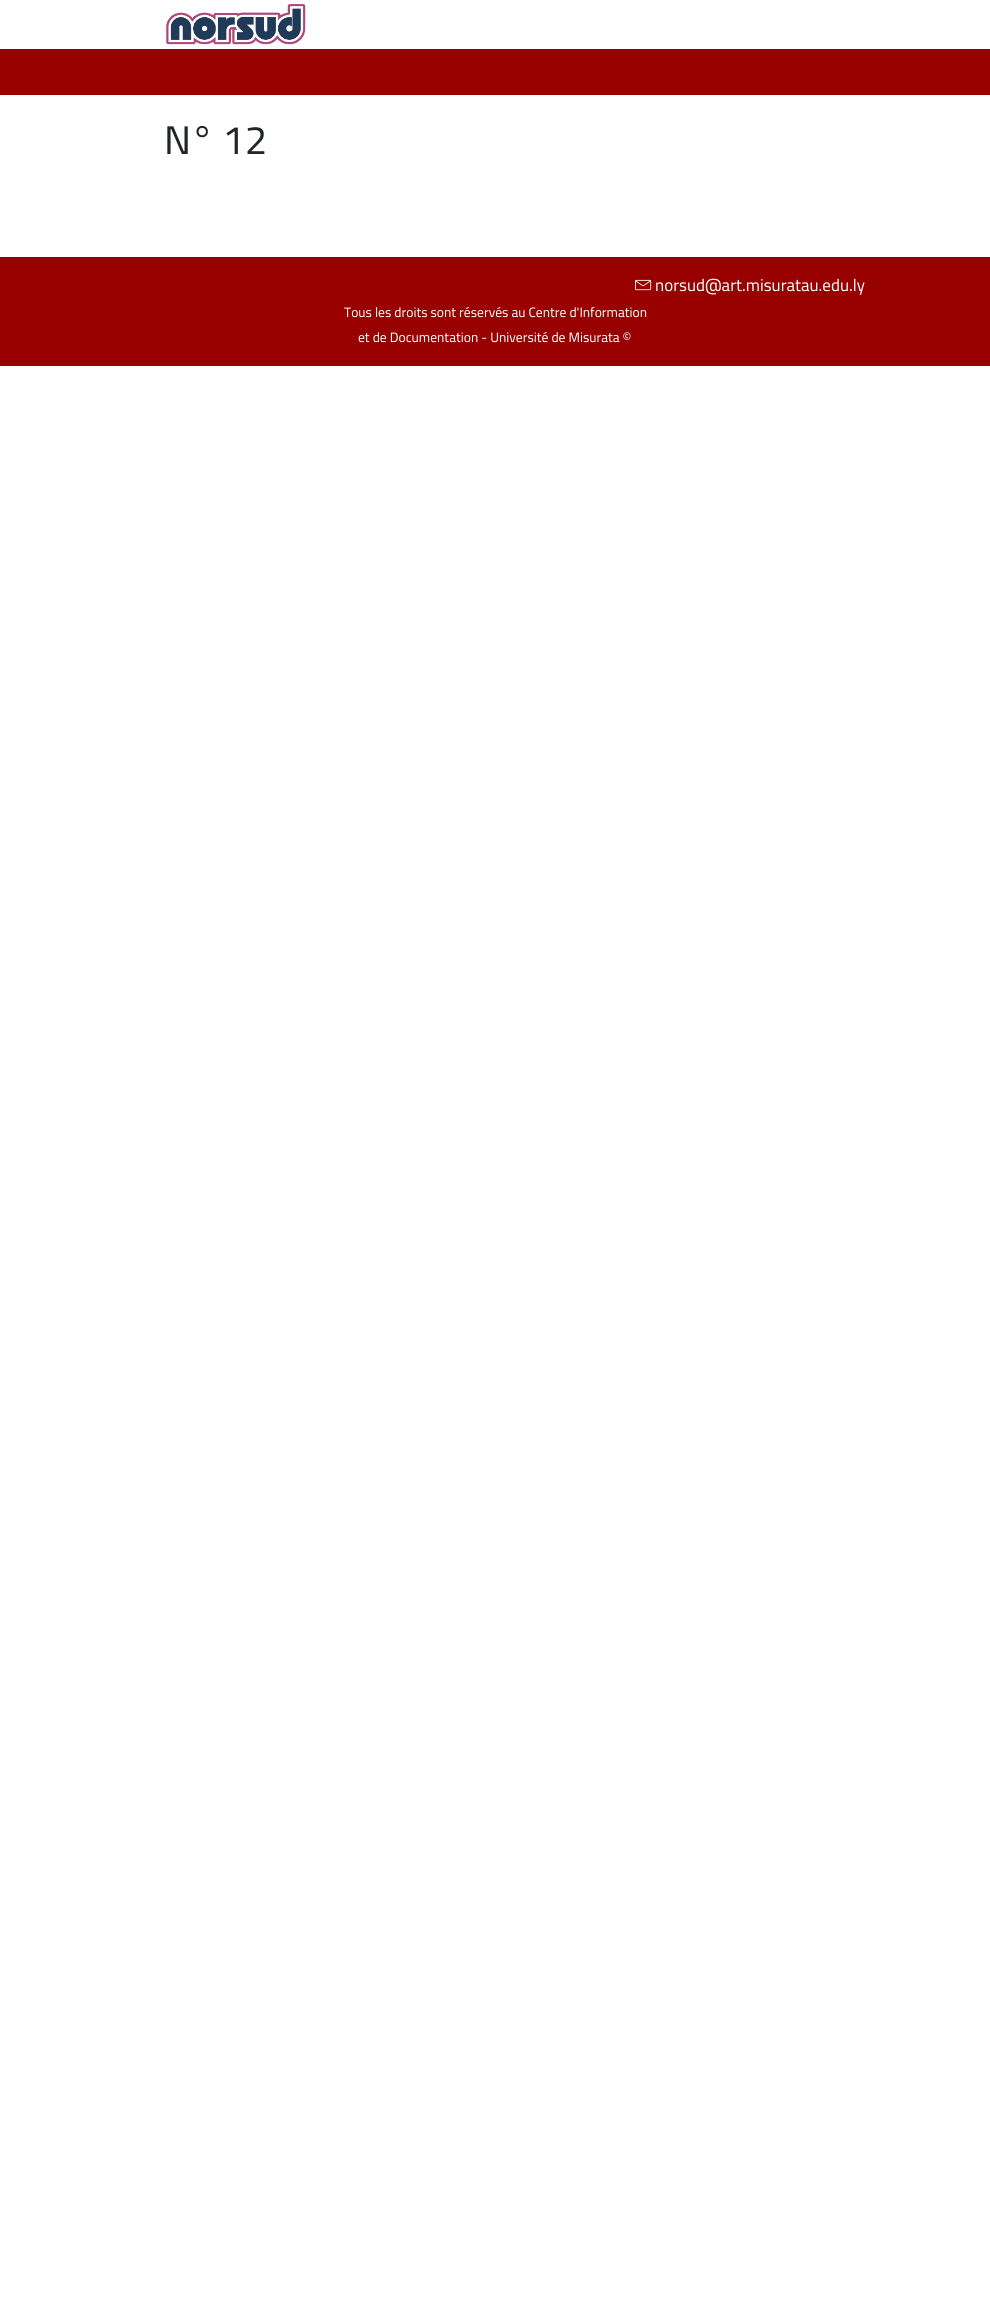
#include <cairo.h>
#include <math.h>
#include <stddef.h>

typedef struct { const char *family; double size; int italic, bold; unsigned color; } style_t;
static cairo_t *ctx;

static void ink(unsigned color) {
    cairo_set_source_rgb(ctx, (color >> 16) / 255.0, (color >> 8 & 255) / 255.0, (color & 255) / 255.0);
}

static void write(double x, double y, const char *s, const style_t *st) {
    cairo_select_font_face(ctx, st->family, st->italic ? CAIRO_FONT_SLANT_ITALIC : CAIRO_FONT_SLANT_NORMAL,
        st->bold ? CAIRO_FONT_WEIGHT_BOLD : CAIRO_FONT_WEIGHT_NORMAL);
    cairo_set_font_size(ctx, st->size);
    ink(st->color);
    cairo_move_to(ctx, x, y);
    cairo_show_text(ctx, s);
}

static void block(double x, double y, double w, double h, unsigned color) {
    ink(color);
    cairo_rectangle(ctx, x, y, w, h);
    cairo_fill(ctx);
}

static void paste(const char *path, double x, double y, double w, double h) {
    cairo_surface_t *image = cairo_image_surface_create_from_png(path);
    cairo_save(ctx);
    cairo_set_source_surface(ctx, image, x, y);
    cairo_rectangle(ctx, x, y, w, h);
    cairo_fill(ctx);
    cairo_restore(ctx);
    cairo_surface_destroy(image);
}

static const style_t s1 = {"Cairo", 40, 0, 0, 0x212529};
static const style_t s2 = {"Cairo", 17, 0, 0, 0xffffff};
static const style_t s3 = {"Cairo", 13.6, 0, 0, 0xffffff};

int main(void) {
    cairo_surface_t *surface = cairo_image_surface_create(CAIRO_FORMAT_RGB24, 990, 2319);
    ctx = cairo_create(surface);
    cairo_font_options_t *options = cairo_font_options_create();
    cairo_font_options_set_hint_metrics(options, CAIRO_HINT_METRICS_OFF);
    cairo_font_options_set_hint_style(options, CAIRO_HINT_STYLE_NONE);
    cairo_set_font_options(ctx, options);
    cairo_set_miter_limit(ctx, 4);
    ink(0xffffff);
    cairo_paint(ctx);
    paste("pic1.png", 166, 4, 140, 41);
    block(0, 49, 990, 46, 0x990000);
    write(164, 154, "N° 12", &s1);
    block(0, 257, 990, 109, 0x990000);
    paste("pic2.png", 635, 279, 17, 12);
    write(655, 291, "norsud@art.misuratau.edu.ly", &s2);
    write(344, 317, "Tous les droits sont réservés au Centre d'Information", &s3);
    write(358, 342, "et de Documentation - Université de Misurata ©", &s3);
    cairo_surface_write_to_png(surface, "screenshot.png");
    cairo_font_options_destroy(options);
    cairo_destroy(ctx);
    cairo_surface_destroy(surface);
    return 0;
}
